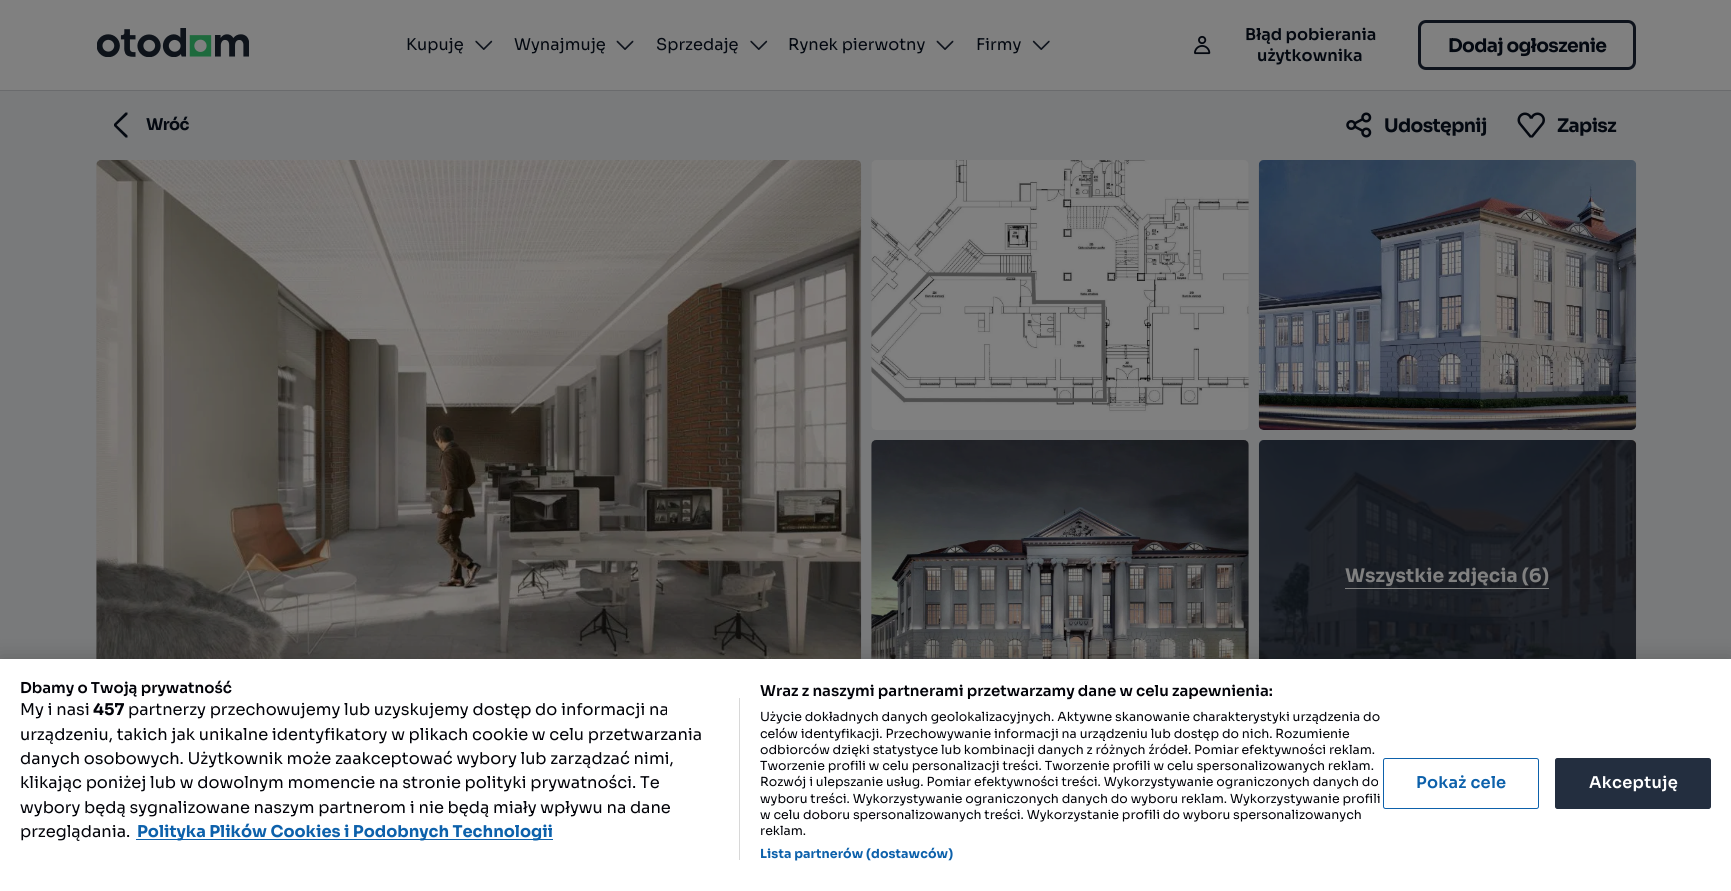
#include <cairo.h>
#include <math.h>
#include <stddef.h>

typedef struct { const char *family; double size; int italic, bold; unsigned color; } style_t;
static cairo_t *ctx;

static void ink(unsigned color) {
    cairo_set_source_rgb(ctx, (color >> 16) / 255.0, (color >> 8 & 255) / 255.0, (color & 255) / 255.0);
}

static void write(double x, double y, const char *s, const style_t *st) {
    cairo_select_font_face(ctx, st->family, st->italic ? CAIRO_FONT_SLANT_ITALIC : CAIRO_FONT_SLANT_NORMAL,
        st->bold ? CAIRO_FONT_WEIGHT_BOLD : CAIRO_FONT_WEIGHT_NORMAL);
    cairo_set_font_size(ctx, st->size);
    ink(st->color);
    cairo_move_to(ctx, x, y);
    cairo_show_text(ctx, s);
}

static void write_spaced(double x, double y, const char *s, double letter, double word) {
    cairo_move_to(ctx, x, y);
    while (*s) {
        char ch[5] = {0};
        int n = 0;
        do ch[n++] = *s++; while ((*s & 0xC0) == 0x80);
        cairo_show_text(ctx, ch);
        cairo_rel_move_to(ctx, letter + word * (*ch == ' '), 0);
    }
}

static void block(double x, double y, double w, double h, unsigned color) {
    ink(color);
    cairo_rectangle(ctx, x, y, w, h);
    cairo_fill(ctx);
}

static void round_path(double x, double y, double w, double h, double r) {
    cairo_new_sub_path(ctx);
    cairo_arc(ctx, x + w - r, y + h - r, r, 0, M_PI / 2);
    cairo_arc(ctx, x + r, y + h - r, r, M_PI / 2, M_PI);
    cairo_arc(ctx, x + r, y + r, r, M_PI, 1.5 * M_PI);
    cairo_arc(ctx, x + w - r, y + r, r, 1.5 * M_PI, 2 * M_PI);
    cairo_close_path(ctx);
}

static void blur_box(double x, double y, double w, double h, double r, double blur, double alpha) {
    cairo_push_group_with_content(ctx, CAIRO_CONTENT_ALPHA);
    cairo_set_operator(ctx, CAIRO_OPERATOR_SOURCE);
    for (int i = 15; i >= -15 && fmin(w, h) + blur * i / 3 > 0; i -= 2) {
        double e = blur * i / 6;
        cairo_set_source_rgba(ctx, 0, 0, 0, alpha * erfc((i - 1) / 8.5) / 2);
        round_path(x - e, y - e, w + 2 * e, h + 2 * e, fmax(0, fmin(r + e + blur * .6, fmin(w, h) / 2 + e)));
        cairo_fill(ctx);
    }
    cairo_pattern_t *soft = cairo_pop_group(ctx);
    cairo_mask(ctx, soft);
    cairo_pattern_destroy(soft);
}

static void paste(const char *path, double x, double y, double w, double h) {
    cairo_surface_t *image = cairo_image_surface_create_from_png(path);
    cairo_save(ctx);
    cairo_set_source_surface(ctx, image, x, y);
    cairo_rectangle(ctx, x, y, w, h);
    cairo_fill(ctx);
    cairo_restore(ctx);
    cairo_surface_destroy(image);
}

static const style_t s1 = {"Sora", 16.25, 0, 0, 0x040911};
static const style_t s2 = {"Sora SemiBold", 16.25, 0, 0, 0x040911};
static const style_t s3 = {"Sora", 18.75, 0, 1, 0x808080};
static const style_t s4 = {"Sora SemiBold", 15, 0, 0, 0x020309};
static const style_t s5 = {"Sora", 12.5, 0, 0, 0x020309};
static const style_t s6 = {"Sora", 16.25, 0, 0, 0x020309};
static const style_t s7 = {"Sora", 16.25, 0, 1, 0x020309};
static const style_t s8 = {"Sora", 16.25, 0, 1, 0x0d61ab};

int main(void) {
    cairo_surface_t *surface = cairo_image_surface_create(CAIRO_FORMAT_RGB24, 1731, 891);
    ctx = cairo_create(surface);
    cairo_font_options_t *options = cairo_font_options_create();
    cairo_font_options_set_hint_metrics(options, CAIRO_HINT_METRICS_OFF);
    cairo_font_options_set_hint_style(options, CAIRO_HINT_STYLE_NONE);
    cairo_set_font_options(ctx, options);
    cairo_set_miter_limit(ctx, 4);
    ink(0x797a7b);
    cairo_paint(ctx);
    block(0, 0, 1731, 90, 0x808080);
    block(0, 90, 1731, 1, 0x6a6b6d);
    paste("pic1.png", 97, 28, 152, 29);
    write(406, 50, "Kupuję", &s1);
    paste("pic2.png", 475, 40, 18, 10);
    write(514, 50, "Wynajmuję", &s1);
    paste("pic3.png", 616, 40, 18, 10);
    write(656, 50, "Sprzedaję", &s1);
    paste("pic2.png", 750, 40, 18, 10);
    write(788, 50, "Rynek pierwotny", &s1);
    paste("pic3.png", 936, 40, 18, 10);
    write(976, 50, "Firmy", &s1);
    paste("pic4.png", 1032, 40, 18, 10);
    paste("pic5.png", 1194, 35, 17, 20);
    write(1245, 40, "Błąd pobierania", &s2);
    write(1257, 61, "użytkownika", &s2);
    round_path(1419.5, 21.5, 215, 47, 6.5);
    ink(0x0e131c);
    cairo_set_line_width(ctx, 3);
    cairo_stroke(ctx);
    cairo_select_font_face(ctx, "Sora", CAIRO_FONT_SLANT_NORMAL, CAIRO_FONT_WEIGHT_BOLD);
    cairo_set_font_size(ctx, 18.75);
    ink(0x040911);
    write_spaced(1448, 52, "Dodaj ogłoszenie", -0.6, 0);
    cairo_set_fill_rule(ctx, CAIRO_FILL_RULE_EVEN_ODD);
    cairo_new_path(ctx);
    cairo_move_to(ctx, 125.5, 112.5);
    cairo_line_to(ctx, 114, 124);
    cairo_line_to(ctx, 114, 126);
    cairo_line_to(ctx, 125.5, 137.5);
    cairo_line_to(ctx, 127.5, 137.5);
    cairo_line_to(ctx, 127.5, 135.5);
    cairo_line_to(ctx, 116.5, 125);
    cairo_line_to(ctx, 127.5, 114.5);
    cairo_line_to(ctx, 127.5, 112.5);
    cairo_close_path(ctx);
    cairo_fill(ctx);
    cairo_set_font_size(ctx, 16.25);
    write_spaced(146, 130, "Wróć", -0.6, 0);
    paste("pic6.png", 1346, 112, 26, 26);
    cairo_set_font_size(ctx, 18.75);
    write_spaced(1384, 132, "Udostępnij", -0.6, 0);
    paste("pic7.png", 1517, 112, 28, 26);
    write_spaced(1557, 132, "Zapisz", -0.6, 0);
    ink(0x787878);
    round_path(96, 160, 765, 550, 5);
    cairo_fill(ctx);
    paste("pic8.png", 96, 160, 766, 499);
    round_path(871, 160, 378, 270, 5);
    cairo_fill(ctx);
    paste("pic9.png", 871, 160, 378, 270);
    paste("pic10.png", 1258, 160, 379, 270);
    round_path(871, 440, 378, 270, 5);
    cairo_fill(ctx);
    paste("pic11.png", 871, 440, 378, 219);
    paste("pic12.png", 1258, 440, 379, 219);
    cairo_set_source_rgba(ctx, 0.055, 0.075, 0.11, 0.8);
    round_path(1259, 440, 377, 270, 5);
    cairo_fill(ctx);
    write(1345, 582, "Wszystkie zdjęcia (6)", &s3);
    block(1345, 588, 204, 1, 0x808080);
    ink(0x000000);
    blur_box(0, 659, 1731, 232, 0, 11, 0.2);
    block(0, 659, 1731, 232, 0xffffff);
    write(20, 693, "Dbamy o Twoją prywatność", &s4);
    write(760, 696, "Wraz z naszymi partnerami przetwarzamy dane w celu zapewnienia:", &s4);
    write(760, 721, "Użycie dokładnych danych geolokalizacyjnych. Aktywne skanowanie charakterystyki urządzenia do", &s5);
    write(760, 738, "celów identyfikacji. Przechowywanie informacji na urządzeniu lub dostęp do nich. Rozumienie", &s5);
    write(760, 754, "odbiorców dzięki statystyce lub kombinacji danych z różnych źródeł. Pomiar efektywności reklam.", &s5);
    write(760, 770, "Tworzenie profili w celu personalizacji treści. Tworzenie profili w celu spersonalizowanych reklam.", &s5);
    write(760, 786, "Rozwój i ulepszanie usług. Pomiar efektywności treści. Wykorzystywanie ograniczonych danych do", &s5);
    write(760, 803, "wyboru treści. Wykorzystywanie ograniczonych danych do wyboru reklam. Wykorzystywanie profili", &s5);
    write(760, 819, "w celu doboru spersonalizowanych treści. Wykorzystanie profili do wyboru spersonalizowanych", &s5);
    write(760, 835, "reklam.", &s5);
    cairo_select_font_face(ctx, "Sora", CAIRO_FONT_SLANT_NORMAL, CAIRO_FONT_WEIGHT_BOLD);
    ink(0x0d61ab);
    write_spaced(760, 858, "Lista partnerów (dostawców)", 0.1, 0);
    block(739, 698, 1, 162, 0xd8d8d8);
    write(20, 715, "My i nasi", &s6);
    write(93, 715, "457", &s7);
    write(128, 715, "partnerzy przechowujemy lub uzyskujemy dostęp do informacji na", &s6);
    write(20, 740, "urządzeniu, takich jak unikalne identyfikatory w plikach cookie w celu przetwarzania", &s6);
    write(20, 764, "danych osobowych. Użytkownik może zaakceptować wybory lub zarządzać nimi,", &s6);
    write(20, 788, "klikając poniżej lub w dowolnym momencie na stronie polityki prywatności. Te", &s6);
    write(20, 813, "wybory będą sygnalizowane naszym partnerom i nie będą miały wpływu na dane", &s6);
    write(20, 837, "przeglądania.", &s6);
    block(136, 839, 417, 1, 0x0d61ab);
    write(137, 837, "Polityka Plików Cookies i Podobnych Technologii", &s8);
    round_path(1383.5, 758.5, 155, 50, 2);
    cairo_set_line_width(ctx, 1);
    cairo_stroke(ctx);
    cairo_select_font_face(ctx, "Sora SemiBold", CAIRO_FONT_SLANT_NORMAL, CAIRO_FONT_WEIGHT_NORMAL);
    write_spaced(1416, 788, "Pokaż cele", 0.25, 0);
    ink(0x232e3f);
    round_path(1555.5, 758.5, 155, 50, 2);
    cairo_fill_preserve(ctx);
    cairo_stroke(ctx);
    ink(0xffffff);
    write_spaced(1589, 788, "Akceptuję", 0.25, 0);
    cairo_surface_write_to_png(surface, "screenshot.png");
    cairo_font_options_destroy(options);
    cairo_destroy(ctx);
    cairo_surface_destroy(surface);
    return 0;
}
